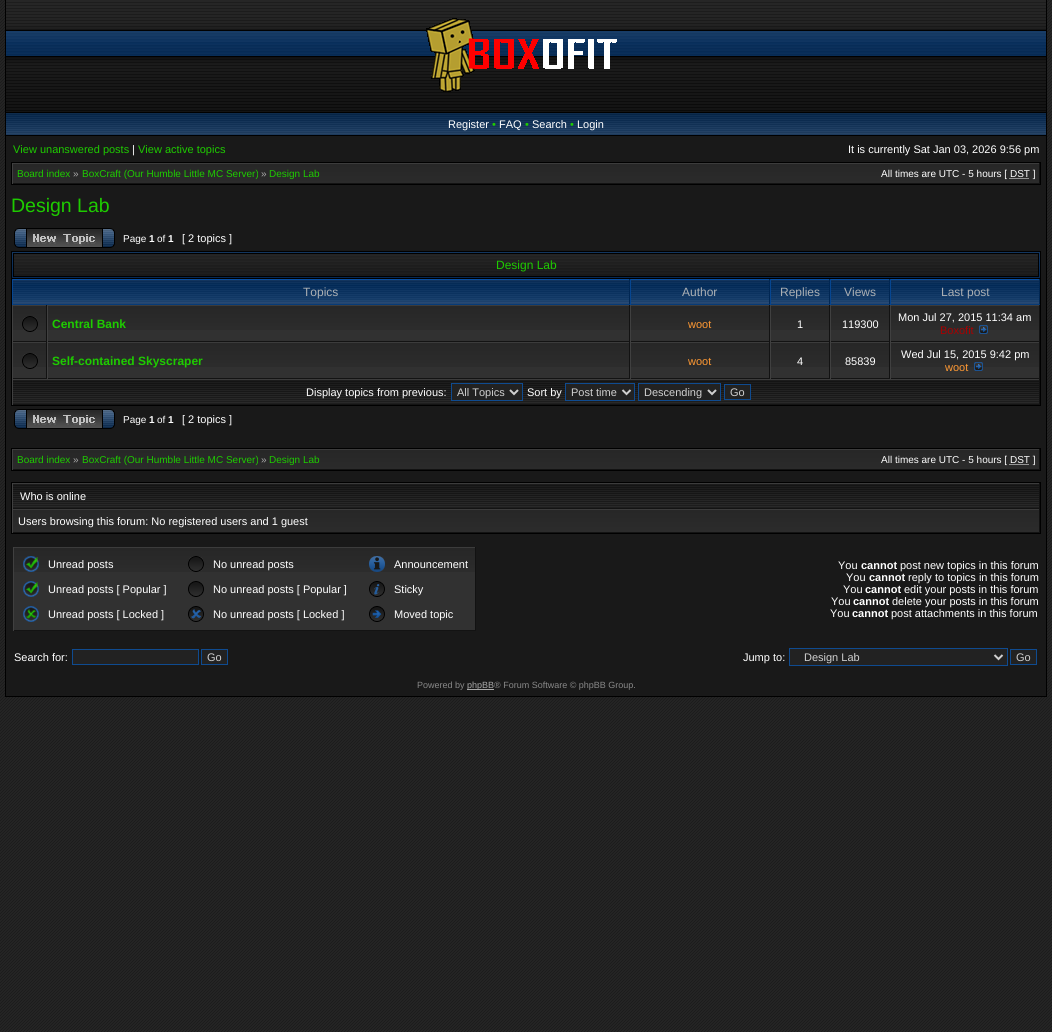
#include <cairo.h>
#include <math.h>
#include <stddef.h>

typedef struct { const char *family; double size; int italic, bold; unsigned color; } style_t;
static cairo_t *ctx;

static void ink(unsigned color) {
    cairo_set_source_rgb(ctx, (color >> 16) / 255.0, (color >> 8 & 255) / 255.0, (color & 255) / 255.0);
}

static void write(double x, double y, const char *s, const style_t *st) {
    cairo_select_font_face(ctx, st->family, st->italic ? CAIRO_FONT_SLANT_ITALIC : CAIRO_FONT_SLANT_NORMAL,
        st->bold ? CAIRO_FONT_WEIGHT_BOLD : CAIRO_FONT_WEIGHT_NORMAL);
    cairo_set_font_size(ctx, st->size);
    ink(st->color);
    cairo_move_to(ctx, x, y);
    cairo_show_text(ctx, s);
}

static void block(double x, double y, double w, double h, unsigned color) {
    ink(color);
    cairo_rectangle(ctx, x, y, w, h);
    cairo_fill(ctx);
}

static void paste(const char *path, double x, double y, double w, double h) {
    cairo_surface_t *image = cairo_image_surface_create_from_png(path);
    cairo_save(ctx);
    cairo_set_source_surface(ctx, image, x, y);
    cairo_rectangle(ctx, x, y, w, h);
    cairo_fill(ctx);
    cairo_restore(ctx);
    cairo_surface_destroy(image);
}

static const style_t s1 = {"Liberation Sans", 11, 0, 0, 0xffffff};
static const style_t s2 = {"Liberation Sans", 11, 0, 0, 0x1ecb00};
static const style_t s3 = {"Liberation Sans", 10, 0, 0, 0x1ecb00};
static const style_t s4 = {"Liberation Sans", 10, 0, 0, 0xaaaaaa};
static const style_t s5 = {"Liberation Sans", 10, 0, 0, 0xffffff};
static const style_t s6 = {"Liberation Sans", 19.5, 0, 0, 0x1ecb00};
static const style_t s7 = {"Liberation Sans", 10, 0, 1, 0xffffff};
static const style_t s8 = {"Liberation Sans", 12, 0, 0, 0x1ecb00};
static const style_t s9 = {"Liberation Sans", 12, 0, 0, 0xacb0b4};
static const style_t s10 = {"Liberation Sans", 12, 0, 1, 0x1ecb00};
static const style_t s11 = {"Liberation Sans", 11, 0, 0, 0xff9933};
static const style_t s12 = {"Liberation Sans", 11, 0, 0, 0xaa0000};
static const style_t s13 = {"Liberation Sans", 11, 0, 0, 0xd0d0d0};
static const style_t s14 = {"Liberation Sans", 11, 0, 1, 0xffffff};
static const style_t s15 = {"Liberation Sans", 9, 0, 0, 0x888888};
static const style_t s16 = {"Liberation Sans", 9, 0, 0, 0xaaaaaa};

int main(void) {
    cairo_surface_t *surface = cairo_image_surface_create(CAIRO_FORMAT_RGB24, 1052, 1032);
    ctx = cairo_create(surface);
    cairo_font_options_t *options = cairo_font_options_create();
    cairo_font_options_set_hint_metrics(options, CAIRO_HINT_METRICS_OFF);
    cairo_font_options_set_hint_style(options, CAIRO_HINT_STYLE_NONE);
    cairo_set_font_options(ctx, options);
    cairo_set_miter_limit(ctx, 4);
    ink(0xffffff);
    cairo_paint(ctx);
    paste("pic1.png", 0, 0, 1052, 1032);
    block(1046, 0, 1, 697, 0x000000);
    block(5, 696, 1042, 1, 0x000000);
    block(5, 0, 1, 697, 0x000000);
    paste("pic2.png", 6, 0, 1040, 112);
    paste("pic3.png", 426, 18, 191, 74);
    paste("pic4.png", 6, 113, 1040, 22);
    block(6, 112, 1040, 1, 0x000000);
    block(6, 135, 1040, 1, 0x000000);
    write(448, 128, "Register", &s1);
    write(492, 128, "•", &s2);
    write(499, 128, "FAQ", &s1);
    write(525, 128, "•", &s2);
    write(532, 128, "Search", &s1);
    write(570, 128, "•", &s2);
    write(577, 128, "Login", &s1);
    block(6, 136, 1040, 560, 0x191919);
    write(13, 153, "View unanswered posts", &s2);
    write(132, 153, "|", &s1);
    write(138, 153, "View active topics", &s2);
    write(848, 153, "It is currently Sat Jan 03, 2026 9:56 pm", &s1);
    cairo_rectangle(ctx, 11.5, 162.5, 1029, 22);
    ink(0x000000);
    cairo_set_line_width(ctx, 1);
    cairo_stroke(ctx);
    paste("pic5.png", 13, 164, 1026, 19);
    block(12, 163, 1028, 1, 0x3c3c3c);
    block(1039, 163, 1, 21, 0x121212);
    block(12, 183, 1028, 1, 0x131313);
    block(12, 163, 1, 21, 0x404040);
    write(17, 177, "Board index", &s3);
    write(73, 177, "»", &s4);
    write(82, 177, "BoxCraft (Our Humble Little MC Server)", &s3);
    write(261, 177, "»", &s4);
    write(269, 177, "Design Lab", &s3);
    write(881, 177, "All times are UTC - 5 hours [ DST ]", &s5);
    cairo_new_path(ctx);
    cairo_move_to(ctx, 1009.5, 178.5);
    cairo_line_to(ctx, 1029.5, 178.5);
    cairo_set_dash(ctx, (double[]){1, 1}, 2, 0);
    cairo_stroke(ctx);
    write(11, 212, "Design Lab", &s6);
    paste("pic6.png", 14, 228, 101, 20);
    write(123, 242, "Page", &s5);
    write(149, 242, "1", &s7);
    write(157, 242, "of", &s5);
    write(168, 242, "1", &s7);
    write(182, 242, "[ 2 topics ]", &s1);
    paste("pic7.png", 11, 251, 1030, 27);
    paste("pic8.png", 11, 252, 3, 26);
    paste("pic9.png", 1038, 252, 3, 26);
    write(496, 269, "Design Lab", &s8);
    block(13, 330, 1026, 48, 0x313131);
    cairo_rectangle(ctx, 11.5, 278.5, 1029, 127);
    ink(0x000000);
    cairo_set_dash(ctx, NULL, 0, 0);
    cairo_stroke(ctx);
    paste("pic10.png", 13, 280, 616, 24);
    block(12, 279, 1028, 1, 0x084ea1);
    block(629, 279, 1, 26, 0x012753);
    block(12, 304, 618, 1, 0x073b77);
    block(12, 279, 1, 26, 0x064691);
    write(303, 296, "Topics", &s9);
    paste("pic11.png", 631, 280, 138, 24);
    block(769, 279, 1, 26, 0x012753);
    block(630, 304, 140, 1, 0x073b77);
    block(630, 279, 1, 26, 0x064691);
    write(682, 296, "Author", &s9);
    paste("pic12.png", 771, 280, 58, 24);
    block(829, 279, 1, 26, 0x012753);
    block(770, 304, 60, 1, 0x073b77);
    block(770, 279, 1, 26, 0x064691);
    write(780, 296, "Replies", &s9);
    paste("pic12.png", 831, 280, 58, 24);
    block(889, 279, 1, 26, 0x012753);
    block(830, 304, 60, 1, 0x073b77);
    block(830, 279, 1, 26, 0x064691);
    write(844, 296, "Views", &s9);
    paste("pic13.png", 891, 280, 148, 24);
    block(1039, 279, 1, 26, 0x012753);
    block(890, 304, 150, 1, 0x073b77);
    block(890, 279, 1, 26, 0x064691);
    write(941, 296, "Last post", &s9);
    paste("pic14.png", 13, 306, 33, 24);
    block(12, 305, 1028, 1, 0x3c3c3c);
    block(46, 305, 1, 37, 0x121212);
    block(12, 341, 35, 1, 0x131313);
    block(12, 305, 1, 37, 0x404040);
    paste("pic15.png", 22, 316, 16, 16);
    paste("pic16.png", 48, 306, 581, 24);
    block(629, 305, 1, 37, 0x121212);
    block(47, 341, 583, 1, 0x131313);
    block(47, 305, 1, 37, 0x404040);
    write(52, 328, "Central Bank", &s10);
    paste("pic17.png", 631, 306, 138, 24);
    block(769, 305, 1, 37, 0x121212);
    block(630, 341, 140, 1, 0x131313);
    block(630, 305, 1, 37, 0x404040);
    write(688, 328, "woot", &s11);
    paste("pic18.png", 771, 306, 58, 24);
    block(829, 305, 1, 37, 0x121212);
    block(770, 341, 60, 1, 0x131313);
    block(770, 305, 1, 37, 0x404040);
    write(797, 328, "1", &s1);
    paste("pic18.png", 831, 306, 58, 24);
    block(889, 305, 1, 37, 0x121212);
    block(830, 341, 60, 1, 0x131313);
    block(830, 305, 1, 37, 0x404040);
    write(842, 328, "119300", &s1);
    paste("pic19.png", 891, 306, 148, 24);
    block(1039, 305, 1, 37, 0x121212);
    block(890, 341, 150, 1, 0x131313);
    block(890, 305, 1, 37, 0x404040);
    write(898, 321, "Mon Jul 27, 2015 11:34 am", &s1);
    write(940, 334, "Boxofit", &s12);
    paste("pic20.png", 979, 325, 9, 9);
    paste("pic14.png", 13, 343, 33, 24);
    block(12, 342, 1028, 1, 0x3c3c3c);
    block(46, 342, 1, 37, 0x121212);
    block(12, 378, 35, 1, 0x131313);
    block(12, 342, 1, 37, 0x404040);
    paste("pic15.png", 22, 353, 16, 16);
    paste("pic16.png", 48, 343, 581, 24);
    block(629, 342, 1, 37, 0x121212);
    block(47, 378, 583, 1, 0x131313);
    block(47, 342, 1, 37, 0x404040);
    write(52, 365, "Self-contained Skyscraper", &s10);
    paste("pic17.png", 631, 343, 138, 24);
    block(769, 342, 1, 37, 0x121212);
    block(630, 378, 140, 1, 0x131313);
    block(630, 342, 1, 37, 0x404040);
    write(688, 365, "woot", &s11);
    paste("pic18.png", 771, 343, 58, 24);
    block(829, 342, 1, 37, 0x121212);
    block(770, 378, 60, 1, 0x131313);
    block(770, 342, 1, 37, 0x404040);
    write(797, 365, "4", &s1);
    paste("pic18.png", 831, 343, 58, 24);
    block(889, 342, 1, 37, 0x121212);
    block(830, 378, 60, 1, 0x131313);
    block(830, 342, 1, 37, 0x404040);
    write(845, 365, "85839", &s1);
    paste("pic19.png", 891, 343, 148, 24);
    block(1039, 342, 1, 37, 0x121212);
    block(890, 378, 150, 1, 0x131313);
    block(890, 342, 1, 37, 0x404040);
    write(901, 358, "Wed Jul 15, 2015 9:42 pm", &s1);
    write(945, 371, "woot", &s11);
    paste("pic20.png", 974, 362, 9, 9);
    paste("pic21.png", 13, 380, 1026, 24);
    block(12, 379, 1028, 1, 0x3c3c3c);
    block(1039, 379, 1, 26, 0x121212);
    block(12, 404, 1028, 1, 0x131313);
    block(12, 379, 1, 26, 0x404040);
    write(306, 396, "Display topics from previous:", &s1);
    ink(0x222222);
    cairo_rectangle(ctx, 451.5, 383.5, 71, 17);
    cairo_fill_preserve(ctx);
    ink(0x0f4b90);
    cairo_stroke(ctx);
    cairo_new_path(ctx);
    cairo_move_to(ctx, 510, 390);
    cairo_line_to(ctx, 514, 394);
    cairo_line_to(ctx, 518, 390);
    ink(0xd0d0d0);
    cairo_set_line_width(ctx, 2);
    cairo_stroke(ctx);
    write(457, 396, "All Topics", &s13);
    write(527, 396, "Sort by", &s1);
    ink(0x222222);
    cairo_rectangle(ctx, 565.5, 383.5, 69, 17);
    cairo_fill_preserve(ctx);
    ink(0x0f4b90);
    cairo_set_line_width(ctx, 1);
    cairo_stroke(ctx);
    cairo_new_path(ctx);
    cairo_move_to(ctx, 622.5, 390);
    cairo_line_to(ctx, 626.5, 394);
    cairo_line_to(ctx, 630.5, 390);
    ink(0xd0d0d0);
    cairo_set_line_width(ctx, 2);
    cairo_stroke(ctx);
    write(571, 396, "Post time", &s13);
    ink(0x222222);
    cairo_rectangle(ctx, 638.5, 383.5, 82, 17);
    cairo_fill_preserve(ctx);
    ink(0x0f4b90);
    cairo_set_line_width(ctx, 1);
    cairo_stroke(ctx);
    cairo_new_path(ctx);
    cairo_move_to(ctx, 708, 390);
    cairo_line_to(ctx, 712, 394);
    cairo_line_to(ctx, 716, 390);
    ink(0xd0d0d0);
    cairo_set_line_width(ctx, 2);
    cairo_stroke(ctx);
    write(644, 396, "Descending", &s13);
    ink(0x222222);
    cairo_rectangle(ctx, 724.5, 384.5, 26, 15);
    cairo_fill_preserve(ctx);
    ink(0x0f4b90);
    cairo_set_line_width(ctx, 1);
    cairo_stroke(ctx);
    write(730, 396, "Go", &s13);
    paste("pic6.png", 14, 409, 101, 20);
    write(123, 423, "Page", &s5);
    write(149, 423, "1", &s7);
    write(157, 423, "of", &s5);
    write(168, 423, "1", &s7);
    write(182, 423, "[ 2 topics ]", &s1);
    cairo_rectangle(ctx, 11.5, 448.5, 1029, 22);
    ink(0x000000);
    cairo_stroke(ctx);
    paste("pic5.png", 13, 450, 1026, 19);
    block(12, 449, 1028, 1, 0x3c3c3c);
    block(1039, 449, 1, 21, 0x121212);
    block(12, 469, 1028, 1, 0x131313);
    block(12, 449, 1, 21, 0x404040);
    write(17, 463, "Board index", &s3);
    write(73, 463, "»", &s4);
    write(82, 463, "BoxCraft (Our Humble Little MC Server)", &s3);
    write(261, 463, "»", &s4);
    write(269, 463, "Design Lab", &s3);
    write(881, 463, "All times are UTC - 5 hours [ DST ]", &s5);
    cairo_new_path(ctx);
    cairo_move_to(ctx, 1009.5, 464.5);
    cairo_line_to(ctx, 1029.5, 464.5);
    cairo_set_dash(ctx, (double[]){1, 1}, 2, 0);
    cairo_stroke(ctx);
    cairo_rectangle(ctx, 11.5, 482.5, 1029, 51);
    ink(0x000000);
    cairo_set_dash(ctx, NULL, 0, 0);
    cairo_stroke(ctx);
    paste("pic21.png", 13, 484, 1026, 24);
    block(12, 483, 1028, 1, 0x3c3c3c);
    block(1039, 483, 1, 26, 0x121212);
    block(12, 508, 1028, 1, 0x131313);
    block(12, 483, 1, 26, 0x404040);
    write(20, 500, "Who is online", &s1);
    paste("pic22.png", 13, 510, 1026, 22);
    block(12, 509, 1028, 1, 0x3c3c3c);
    block(1039, 509, 1, 24, 0x121212);
    block(12, 532, 1028, 1, 0x131313);
    block(12, 509, 1, 24, 0x404040);
    write(18, 525, "Users browsing this forum: No registered users and 1 guest", &s1);
    block(14, 572, 461, 58, 0x313131);
    paste("pic23.png", 14, 548, 461, 24);
    block(13, 547, 463, 1, 0x3c3c3c);
    block(475, 547, 1, 84, 0x121212);
    block(13, 630, 463, 1, 0x131313);
    block(13, 547, 1, 84, 0x404040);
    paste("pic24.png", 23, 556, 16, 16);
    write(48, 568, "Unread posts", &s1);
    paste("pic25.png", 188, 556, 16, 16);
    write(213, 568, "No unread posts", &s1);
    paste("pic26.png", 369, 556, 16, 16);
    write(394, 568, "Announcement", &s1);
    paste("pic27.png", 23, 581, 16, 16);
    write(48, 593, "Unread posts [ Popular ]", &s1);
    paste("pic28.png", 188, 581, 16, 16);
    write(213, 593, "No unread posts [ Popular ]", &s1);
    paste("pic29.png", 369, 581, 16, 16);
    write(394, 593, "Sticky", &s1);
    paste("pic30.png", 23, 606, 16, 16);
    write(48, 618, "Unread posts [ Locked ]", &s1);
    paste("pic31.png", 188, 606, 16, 16);
    write(213, 618, "No unread posts [ Locked ]", &s1);
    paste("pic32.png", 369, 606, 16, 16);
    write(394, 618, "Moved topic", &s1);
    write(838, 569, "You", &s1);
    write(861, 569, "cannot", &s14);
    write(900, 569, "post new topics in this forum", &s1);
    write(846, 581, "You", &s1);
    write(869, 581, "cannot", &s14);
    write(908, 581, "reply to topics in this forum", &s1);
    write(843, 593, "You", &s1);
    write(865, 593, "cannot", &s14);
    write(904, 593, "edit your posts in this forum", &s1);
    write(831, 605, "You", &s1);
    write(853, 605, "cannot", &s14);
    write(892, 605, "delete your posts in this forum", &s1);
    write(830, 617, "You", &s1);
    write(852, 617, "cannot", &s14);
    write(891, 617, "post attachments in this forum", &s1);
    write(14, 661, "Search for:", &s1);
    ink(0x222222);
    cairo_rectangle(ctx, 72.5, 649.5, 126, 15);
    cairo_fill_preserve(ctx);
    ink(0x0f4b90);
    cairo_stroke(ctx);
    ink(0x222222);
    cairo_rectangle(ctx, 201.5, 649.5, 26, 15);
    cairo_fill_preserve(ctx);
    ink(0x0f4b90);
    cairo_stroke(ctx);
    write(207, 661, "Go", &s13);
    write(743, 661, "Jump to:", &s1);
    ink(0x222222);
    cairo_rectangle(ctx, 789.5, 648.5, 218, 17);
    cairo_fill_preserve(ctx);
    ink(0x0f4b90);
    cairo_stroke(ctx);
    cairo_new_path(ctx);
    cairo_move_to(ctx, 994.5, 655);
    cairo_line_to(ctx, 998.5, 659);
    cairo_line_to(ctx, 1002.5, 655);
    ink(0xd0d0d0);
    cairo_set_line_width(ctx, 2);
    cairo_stroke(ctx);
    write(804, 661, "Design Lab", &s13);
    ink(0x222222);
    cairo_rectangle(ctx, 1010.5, 649.5, 26, 15);
    cairo_fill_preserve(ctx);
    ink(0x0f4b90);
    cairo_set_line_width(ctx, 1);
    cairo_stroke(ctx);
    write(1016, 661, "Go", &s13);
    write(417, 688, "Powered by", &s15);
    block(467, 689, 27, 1, 0xaaaaaa);
    write(467, 688, "phpBB", &s16);
    write(494, 688, "® Forum Software © phpBB Group.", &s15);
    cairo_surface_write_to_png(surface, "screenshot.png");
    cairo_font_options_destroy(options);
    cairo_destroy(ctx);
    cairo_surface_destroy(surface);
    return 0;
}
